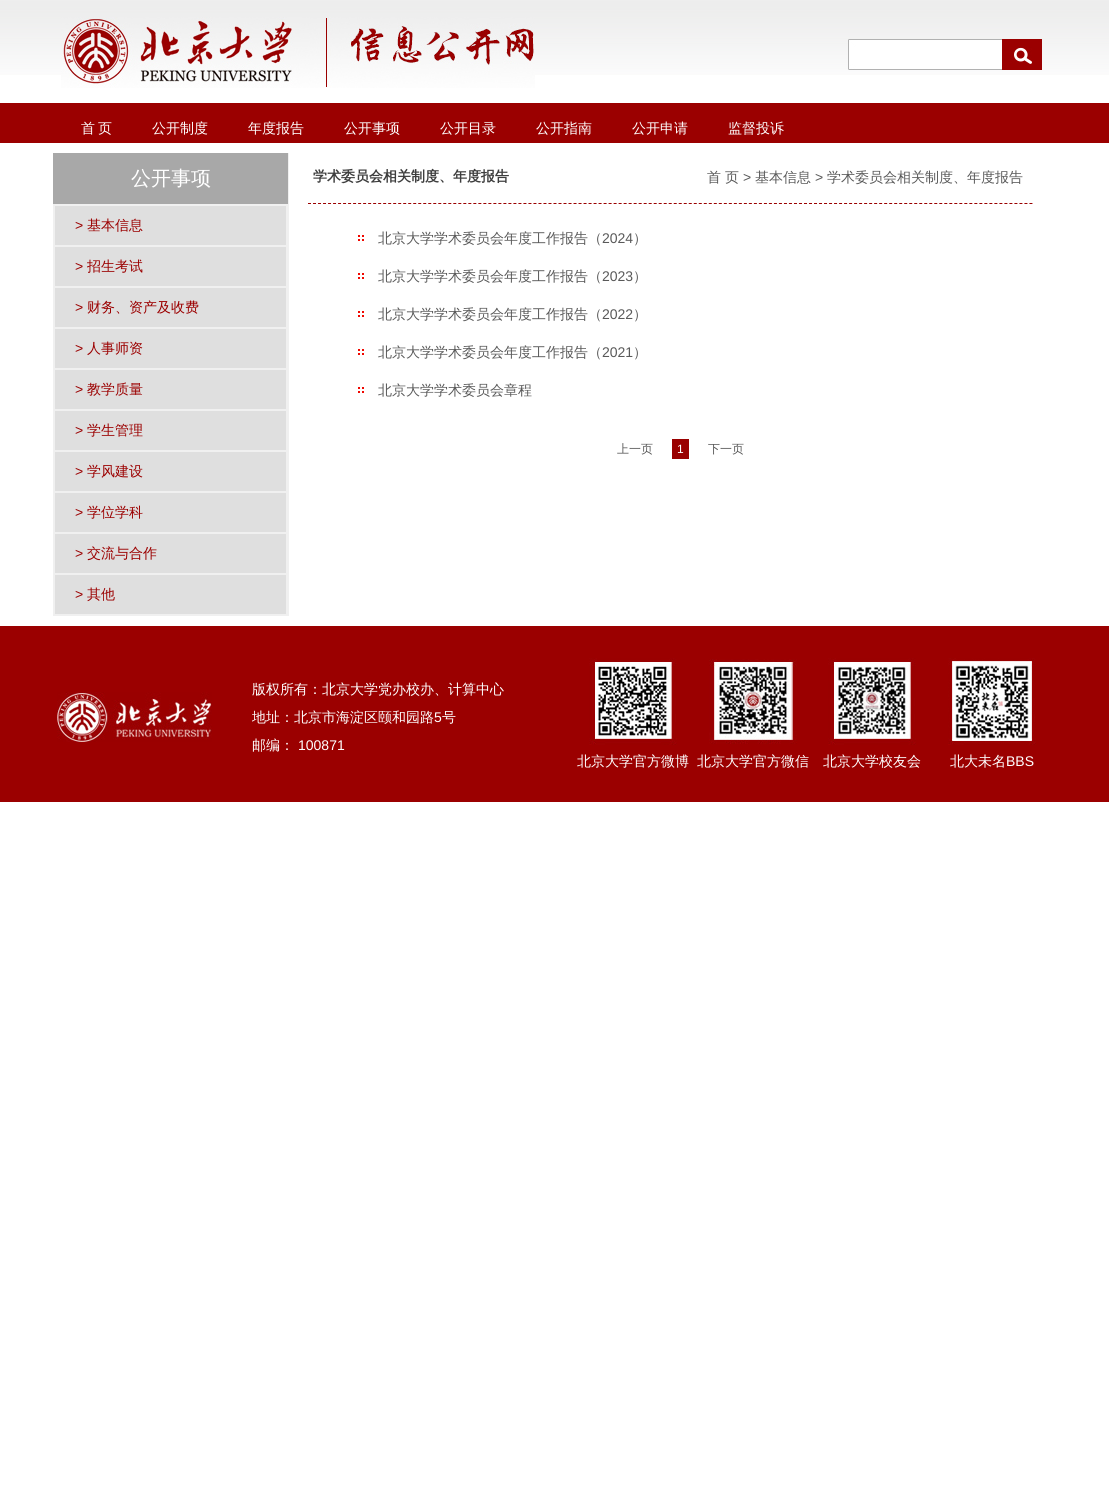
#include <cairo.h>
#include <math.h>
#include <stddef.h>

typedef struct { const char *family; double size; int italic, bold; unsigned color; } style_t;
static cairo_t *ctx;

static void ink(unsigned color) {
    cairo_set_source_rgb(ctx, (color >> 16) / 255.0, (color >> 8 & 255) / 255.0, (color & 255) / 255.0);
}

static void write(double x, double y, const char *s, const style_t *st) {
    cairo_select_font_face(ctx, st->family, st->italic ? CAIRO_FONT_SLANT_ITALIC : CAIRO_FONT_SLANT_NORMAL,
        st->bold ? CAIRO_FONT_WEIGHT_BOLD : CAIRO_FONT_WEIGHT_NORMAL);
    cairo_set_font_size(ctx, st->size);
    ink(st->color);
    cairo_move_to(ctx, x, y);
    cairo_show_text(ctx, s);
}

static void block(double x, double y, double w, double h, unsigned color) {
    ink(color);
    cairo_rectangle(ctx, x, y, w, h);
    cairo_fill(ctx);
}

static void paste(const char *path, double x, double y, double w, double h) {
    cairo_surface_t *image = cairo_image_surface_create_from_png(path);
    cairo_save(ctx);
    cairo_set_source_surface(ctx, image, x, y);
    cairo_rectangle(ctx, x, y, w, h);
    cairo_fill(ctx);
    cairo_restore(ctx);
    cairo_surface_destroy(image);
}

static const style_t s1 = {"WenQuanYi Zen Hei Medium", 14, 0, 0, 0xffffff};
static const style_t s2 = {"WenQuanYi Zen Hei Medium", 20, 0, 0, 0xffffff};
static const style_t s3 = {"Liberation Sans", 14, 0, 0, 0x9b0000};
static const style_t s4 = {"WenQuanYi Zen Hei Medium", 14, 0, 0, 0x9b0000};
static const style_t s5 = {"WenQuanYi Zen Hei", 14, 0, 1, 0x3d3d3d};
static const style_t s6 = {"WenQuanYi Zen Hei Medium", 14, 0, 0, 0x595959};
static const style_t s7 = {"Liberation Sans", 14, 0, 0, 0x595959};
static const style_t s8 = {"WenQuanYi Zen Hei Medium", 12, 0, 0, 0x595959};
static const style_t s9 = {"Liberation Sans", 12, 0, 0, 0xffffff};
static const style_t s10 = {"Liberation Sans", 14, 0, 0, 0xffffff};

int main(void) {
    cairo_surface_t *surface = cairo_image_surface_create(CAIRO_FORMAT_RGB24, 1109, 1509);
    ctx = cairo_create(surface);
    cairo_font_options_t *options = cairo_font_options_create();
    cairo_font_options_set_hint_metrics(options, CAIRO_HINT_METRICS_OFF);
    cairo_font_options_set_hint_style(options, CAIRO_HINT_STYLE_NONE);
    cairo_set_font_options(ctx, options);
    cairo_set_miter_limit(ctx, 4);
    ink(0xffffff);
    cairo_paint(ctx);
    paste("pic1.png", 0, 0, 1109, 75);
    paste("pic2.png", 61, 17, 474, 71);
    paste("pic3.png", 848, 39, 194, 31);
    block(0, 103, 1109, 40, 0x9b0000);
    write(81, 133, "首", &s1);
    write(98, 133, "页", &s1);
    write(152, 133, "公开制度", &s1);
    write(248, 133, "年度报告", &s1);
    write(344, 133, "公开事项", &s1);
    write(440, 133, "公开目录", &s1);
    write(536, 133, "公开指南", &s1);
    write(632, 133, "公开申请", &s1);
    write(728, 133, "监督投诉", &s1);
    block(53, 153, 236, 463, 0xf0f0f0);
    block(53, 153, 235, 51, 0xa8a8a8);
    write(131, 185, "公开事项", &s2);
    block(55, 206, 231, 39, 0xdfdfdf);
    write(75, 230, ">", &s3);
    write(87, 230, "基本信息", &s4);
    block(55, 247, 231, 39, 0xdfdfdf);
    write(75, 271, ">", &s3);
    write(87, 271, "招生考试", &s4);
    block(55, 288, 231, 39, 0xdfdfdf);
    write(75, 312, ">", &s3);
    write(87, 312, "财务、资产及收费", &s4);
    block(55, 329, 231, 39, 0xdfdfdf);
    write(75, 353, ">", &s3);
    write(87, 353, "人事师资", &s4);
    block(55, 370, 231, 39, 0xdfdfdf);
    write(75, 394, ">", &s3);
    write(87, 394, "教学质量", &s4);
    block(55, 411, 231, 39, 0xdfdfdf);
    write(75, 435, ">", &s3);
    write(87, 435, "学生管理", &s4);
    block(55, 452, 231, 39, 0xdfdfdf);
    write(75, 476, ">", &s3);
    write(87, 476, "学风建设", &s4);
    block(55, 493, 231, 39, 0xdfdfdf);
    write(75, 517, ">", &s3);
    write(87, 517, "学位学科", &s4);
    block(55, 534, 231, 39, 0xdfdfdf);
    write(75, 558, ">", &s3);
    write(87, 558, "交流与合作", &s4);
    block(55, 575, 231, 39, 0xdfdfdf);
    write(75, 599, ">", &s3);
    write(87, 599, "其他", &s4);
    cairo_new_path(ctx);
    cairo_move_to(ctx, 308, 203.5);
    cairo_line_to(ctx, 1033, 203.5);
    ink(0x9a0000);
    cairo_set_line_width(ctx, 1);
    cairo_set_dash(ctx, (double[]){3, 2.01}, 2, 0);
    cairo_stroke(ctx);
    write(313, 181, "学术委员会相关制度、年度报告", &s5);
    write(707, 182, "首", &s6);
    write(725, 182, "页", &s6);
    write(743, 182, ">", &s7);
    write(755, 182, "基本信息", &s6);
    write(815, 182, ">", &s7);
    write(827, 182, "学术委员会相关制度、年度报告", &s6);
    paste("pic4.png", 358, 235, 6, 6);
    write(378, 243, "北京大学学术委员会年度工作报告（", &s6);
    write(602, 243, "2024", &s7);
    write(633, 243, "）", &s6);
    paste("pic4.png", 358, 273, 6, 6);
    write(378, 281, "北京大学学术委员会年度工作报告（", &s6);
    write(602, 281, "2023", &s7);
    write(633, 281, "）", &s6);
    paste("pic4.png", 358, 311, 6, 6);
    write(378, 319, "北京大学学术委员会年度工作报告（", &s6);
    write(602, 319, "2022", &s7);
    write(633, 319, "）", &s6);
    paste("pic4.png", 358, 349, 6, 6);
    write(378, 357, "北京大学学术委员会年度工作报告（", &s6);
    write(602, 357, "2021", &s7);
    write(633, 357, "）", &s6);
    paste("pic4.png", 358, 387, 6, 6);
    write(378, 395, "北京大学学术委员会章程", &s6);
    write(617, 453, "上一页", &s8);
    block(672, 439, 17, 20, 0x9a0000);
    write(677, 453, "1", &s9);
    write(708, 453, "下一页", &s8);
    block(0, 626, 1109, 176, 0x9b0000);
    paste("pic5.png", 57, 692, 155, 50);
    write(252, 694, "版权所有：北京大学党办校办、计算中心", &s1);
    write(252, 722, "地址：北京市海淀区颐和园路", &s1);
    write(434, 722, "5", &s10);
    write(442, 722, "号", &s1);
    write(252, 750, "邮编：", &s1);
    write(298, 750, "100871", &s10);
    paste("pic6.png", 589, 658, 88, 87);
    paste("pic7.png", 709, 659, 88, 85);
    paste("pic8.png", 828, 658, 88, 87);
    paste("pic9.png", 948, 658, 88, 87);
    write(577, 766, "北京大学官方微博", &s1);
    write(697, 766, "北京大学官方微信", &s1);
    write(823, 766, "北京大学校友会", &s1);
    write(950, 766, "北大未名", &s1);
    write(1006, 766, "BBS", &s10);
    cairo_surface_write_to_png(surface, "screenshot.png");
    cairo_font_options_destroy(options);
    cairo_destroy(ctx);
    cairo_surface_destroy(surface);
    return 0;
}
